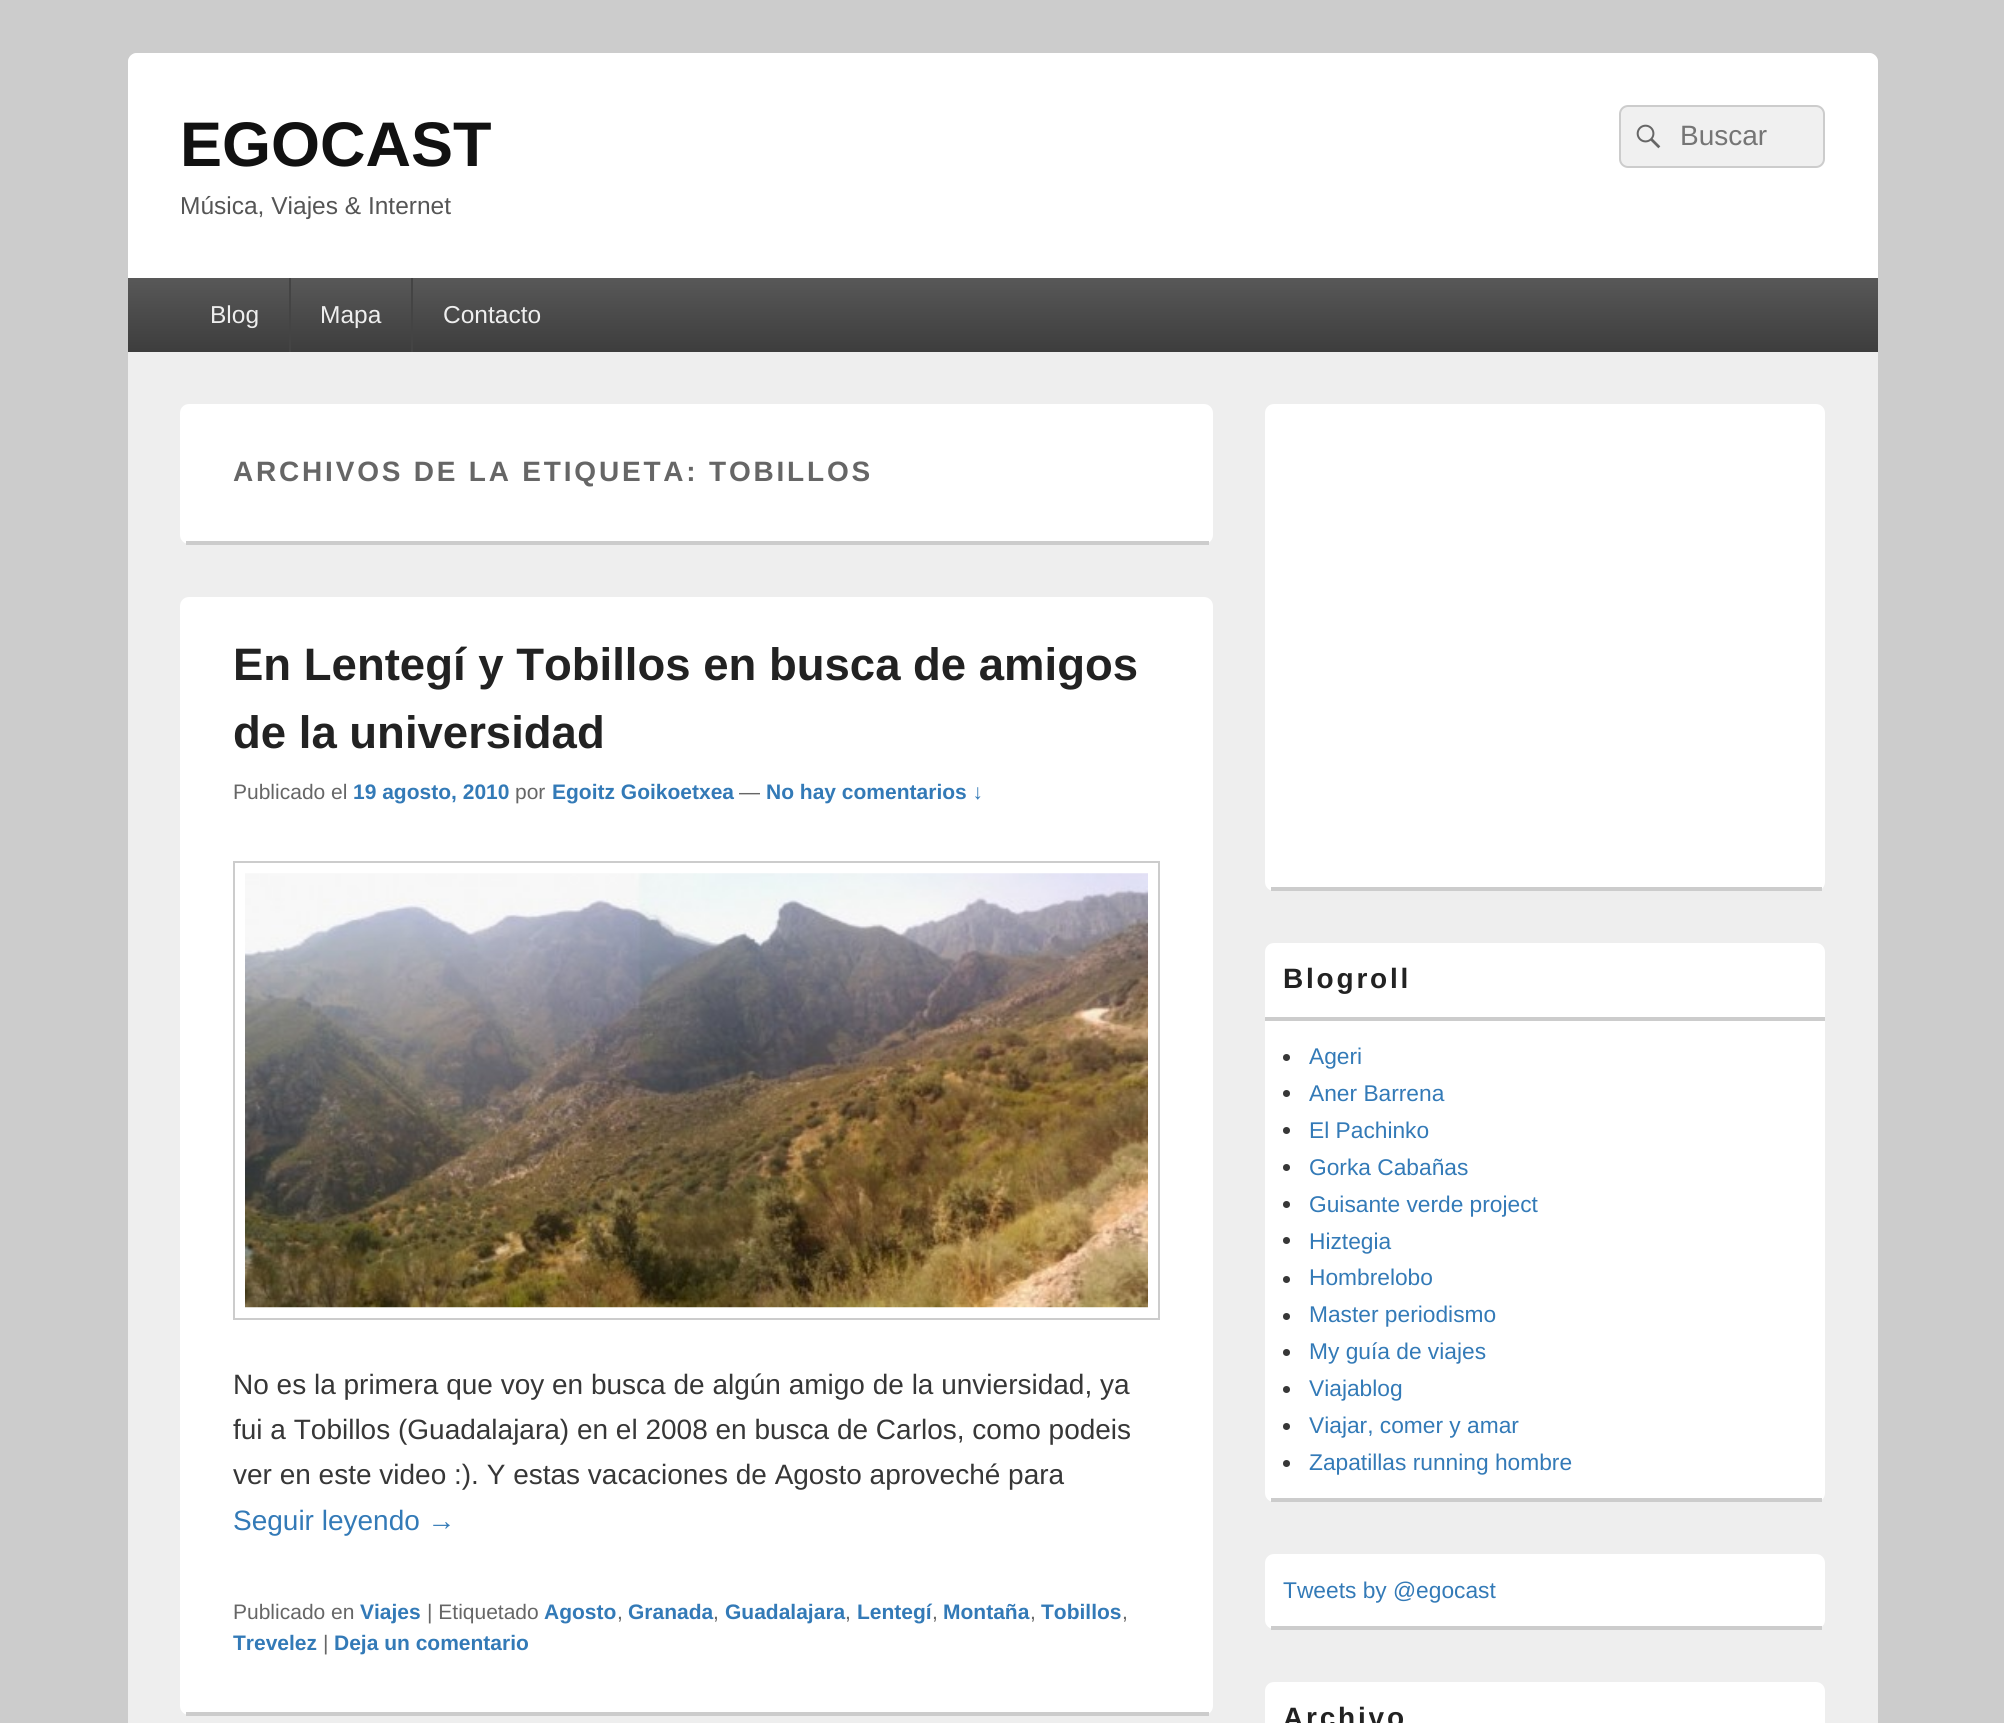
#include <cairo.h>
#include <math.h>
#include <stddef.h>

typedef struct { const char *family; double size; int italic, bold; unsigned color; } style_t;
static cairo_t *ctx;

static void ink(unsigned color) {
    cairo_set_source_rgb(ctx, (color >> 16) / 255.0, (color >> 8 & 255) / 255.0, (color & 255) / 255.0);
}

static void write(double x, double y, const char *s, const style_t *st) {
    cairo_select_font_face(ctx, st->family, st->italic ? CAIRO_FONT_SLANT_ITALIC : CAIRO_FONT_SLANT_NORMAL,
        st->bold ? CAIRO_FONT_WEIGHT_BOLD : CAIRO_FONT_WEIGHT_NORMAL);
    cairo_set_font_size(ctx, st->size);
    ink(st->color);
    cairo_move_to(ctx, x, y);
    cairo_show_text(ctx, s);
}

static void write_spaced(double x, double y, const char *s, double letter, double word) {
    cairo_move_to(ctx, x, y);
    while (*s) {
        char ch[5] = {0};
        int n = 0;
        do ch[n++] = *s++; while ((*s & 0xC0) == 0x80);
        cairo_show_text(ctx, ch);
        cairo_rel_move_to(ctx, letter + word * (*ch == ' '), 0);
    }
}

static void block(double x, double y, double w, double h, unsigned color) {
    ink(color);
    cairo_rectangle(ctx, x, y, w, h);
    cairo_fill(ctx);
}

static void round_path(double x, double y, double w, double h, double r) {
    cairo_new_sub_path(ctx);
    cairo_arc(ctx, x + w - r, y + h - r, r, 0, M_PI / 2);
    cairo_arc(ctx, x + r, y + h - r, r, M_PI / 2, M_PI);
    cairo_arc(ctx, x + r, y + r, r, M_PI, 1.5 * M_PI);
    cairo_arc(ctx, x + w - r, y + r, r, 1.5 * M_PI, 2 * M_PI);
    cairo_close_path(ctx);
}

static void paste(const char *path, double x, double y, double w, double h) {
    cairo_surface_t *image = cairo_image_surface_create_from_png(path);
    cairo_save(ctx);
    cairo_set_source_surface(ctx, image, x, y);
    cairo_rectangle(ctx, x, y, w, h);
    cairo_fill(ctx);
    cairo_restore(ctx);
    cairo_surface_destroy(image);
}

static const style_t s1 = {"Liberation Sans", 63, 0, 1, 0x111111};
static const style_t s2 = {"Liberation Sans", 24.5, 0, 0, 0x555555};
static const style_t s3 = {"Liberation Sans", 28, 0, 0, 0x757575};
static const style_t s4 = {"Liberation Sans", 24.5, 0, 0, 0xeeeeee};
static const style_t s5 = {"Liberation Sans", 45.5, 0, 1, 0x222222};
static const style_t s6 = {"Liberation Sans", 21, 0, 0, 0x666666};
static const style_t s7 = {"Liberation Sans", 21, 0, 1, 0x337ab7};
static const style_t s8 = {"Liberation Sans", 28, 0, 0, 0x373737};
static const style_t s9 = {"Liberation Sans", 28, 0, 0, 0x337ab7};
static const style_t s10 = {"Liberation Sans", 22.75, 0, 0, 0x337ab7};

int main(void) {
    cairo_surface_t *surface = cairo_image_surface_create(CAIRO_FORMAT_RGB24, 2004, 1723);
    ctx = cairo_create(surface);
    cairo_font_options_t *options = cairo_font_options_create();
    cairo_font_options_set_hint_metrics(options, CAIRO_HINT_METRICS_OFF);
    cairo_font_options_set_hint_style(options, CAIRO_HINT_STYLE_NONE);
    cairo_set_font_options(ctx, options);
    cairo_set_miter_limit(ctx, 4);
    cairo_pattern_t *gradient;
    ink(0xcccccc);
    cairo_paint(ctx);
    ink(0xeeeeee);
    round_path(128, 53, 1750, 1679, 9);
    cairo_fill(ctx);
    ink(0xffffff);
    cairo_new_path(ctx);
    cairo_move_to(ctx, 137, 53);
    cairo_line_to(ctx, 1869, 53);
    cairo_curve_to(ctx, 1874, 53, 1878, 57, 1878, 62);
    cairo_line_to(ctx, 1878, 352);
    cairo_line_to(ctx, 128, 352);
    cairo_line_to(ctx, 128, 62);
    cairo_curve_to(ctx, 128, 57, 132, 53, 137, 53);
    cairo_close_path(ctx);
    cairo_fill(ctx);
    write(180, 166, "EGOCAST", &s1);
    write(180, 214, "Música, Viajes & Internet", &s2);
    ink(0xf0f0f0);
    round_path(1620, 106, 204, 61, 8);
    cairo_fill_preserve(ctx);
    ink(0xcccccc);
    cairo_stroke(ctx);
    paste("pic1.png", 1636, 124, 25, 25);
    write(1680, 145, "Buscar", &s3);
    gradient = cairo_pattern_create_linear(1003, 278, 1003, 352);
    cairo_pattern_add_color_stop_rgba(gradient, 0, 0.345, 0.345, 0.345, 1);
    cairo_pattern_add_color_stop_rgba(gradient, 1, 0.239, 0.239, 0.239, 1);
    cairo_set_source(ctx, gradient);
    cairo_pattern_destroy(gradient);
    cairo_rectangle(ctx, 128, 278, 1750, 74);
    cairo_fill(ctx);
    write(210, 323, "Blog", &s4);
    block(289, 278, 2, 74, 0x444444);
    write(320, 323, "Mapa", &s4);
    block(411, 278, 2, 74, 0x444444);
    write(443, 323, "Contacto", &s4);
    ink(0xffffff);
    round_path(180, 404, 1033, 140, 9);
    cairo_fill(ctx);
    block(186, 541, 1023, 4, 0xcccccc);
    cairo_select_font_face(ctx, "Liberation Sans", CAIRO_FONT_SLANT_NORMAL, CAIRO_FONT_WEIGHT_BOLD);
    cairo_set_font_size(ctx, 28);
    ink(0x666666);
    write_spaced(233, 481, "ARCHIVOS DE LA ETIQUETA: TOBILLOS", 2.8, 0);
    ink(0xffffff);
    round_path(180, 597, 1033, 1118, 9);
    cairo_fill(ctx);
    block(186, 1712, 1023, 4, 0xcccccc);
    write(233, 680, "En Lentegí y Tobillos en busca de amigos", &s5);
    write(233, 748, "de la universidad", &s5);
    write(233, 799, "Publicado el", &s6);
    write(353, 799, "19 agosto, 2010", &s7);
    write(515, 799, "por", &s6);
    write(552, 799, "Egoitz Goikoetxea", &s7);
    write(739, 799, "—", &s6);
    write(766, 799, "No hay comentarios ↓", &s7);
    cairo_rectangle(ctx, 234, 862, 925, 457);
    ink(0xcccccc);
    cairo_stroke(ctx);
    paste("pic2.png", 245, 873, 903, 435);
    write(233, 1394, "No es la primera que voy en busca de algún amigo de la unviersidad, ya", &s8);
    write(233, 1439, "fui a Tobillos (Guadalajara) en el 2008 en busca de Carlos, como podeis", &s8);
    write(233, 1484, "ver en este video :). Y estas vacaciones de Agosto aproveché para", &s8);
    write(233, 1530, "Seguir leyendo →", &s9);
    write(233, 1619, "Publicado en", &s6);
    write(360, 1619, "Viajes", &s7);
    write(427, 1619, "| Etiquetado", &s6);
    write(544, 1619, "Agosto", &s7);
    write(617, 1619, ",", &s6);
    write(628, 1619, "Granada", &s7);
    write(713, 1619, ",", &s6);
    write(725, 1619, "Guadalajara", &s7);
    write(845, 1619, ",", &s6);
    write(857, 1619, "Lentegí", &s7);
    write(932, 1619, ",", &s6);
    write(943, 1619, "Montaña", &s7);
    write(1030, 1619, ",", &s6);
    write(1041, 1619, "Tobillos", &s7);
    write(1122, 1619, ",", &s6);
    write(233, 1650, "Trevelez", &s7);
    write(323, 1650, "|", &s6);
    write(334, 1650, "Deja un comentario", &s7);
    ink(0xffffff);
    round_path(1265, 404, 560, 487, 9);
    cairo_fill(ctx);
    block(1271, 887, 551, 4, 0xcccccc);
    ink(0xffffff);
    round_path(1265, 943, 560, 559, 9);
    cairo_fill(ctx);
    block(1271, 1498, 551, 4, 0xcccccc);
    block(1265, 1017, 560, 4, 0xcccccc);
    cairo_set_font_size(ctx, 28);
    ink(0x222222);
    write_spaced(1283, 988, "Blogroll", 2.8, 0);
    ink(0x373737);
    cairo_new_path(ctx);
    cairo_arc(ctx, 1286.5, 1057.5, 3.5, 0, 2 * M_PI);
    cairo_fill(ctx);
    write(1309, 1064, "Ageri", &s10);
    ink(0x373737);
    cairo_new_path(ctx);
    cairo_arc(ctx, 1286.5, 1093.5, 3.5, 0, 2 * M_PI);
    cairo_fill(ctx);
    write(1309, 1101, "Aner Barrena", &s10);
    ink(0x373737);
    cairo_new_path(ctx);
    cairo_arc(ctx, 1286.5, 1130.5, 3.5, 0, 2 * M_PI);
    cairo_fill(ctx);
    write(1309, 1138, "El Pachinko", &s10);
    ink(0x373737);
    cairo_new_path(ctx);
    cairo_arc(ctx, 1286.5, 1167.5, 3.5, 0, 2 * M_PI);
    cairo_fill(ctx);
    write(1309, 1175, "Gorka Cabañas", &s10);
    ink(0x373737);
    cairo_new_path(ctx);
    cairo_arc(ctx, 1286.5, 1204.5, 3.5, 0, 2 * M_PI);
    cairo_fill(ctx);
    write(1309, 1212, "Guisante verde project", &s10);
    ink(0x373737);
    cairo_new_path(ctx);
    cairo_arc(ctx, 1286.5, 1240.5, 3.5, 0, 2 * M_PI);
    cairo_fill(ctx);
    write(1309, 1249, "Hiztegia", &s10);
    ink(0x373737);
    cairo_new_path(ctx);
    cairo_arc(ctx, 1286.5, 1279.5, 3.5, 0, 2 * M_PI);
    cairo_fill(ctx);
    write(1309, 1285, "Hombrelobo", &s10);
    ink(0x373737);
    cairo_new_path(ctx);
    cairo_arc(ctx, 1286.5, 1316.5, 3.5, 0, 2 * M_PI);
    cairo_fill(ctx);
    write(1309, 1322, "Master periodismo", &s10);
    ink(0x373737);
    cairo_new_path(ctx);
    cairo_arc(ctx, 1286.5, 1352.5, 3.5, 0, 2 * M_PI);
    cairo_fill(ctx);
    write(1309, 1359, "My guía de viajes", &s10);
    ink(0x373737);
    cairo_new_path(ctx);
    cairo_arc(ctx, 1286.5, 1389.5, 3.5, 0, 2 * M_PI);
    cairo_fill(ctx);
    write(1309, 1396, "Viajablog", &s10);
    ink(0x373737);
    cairo_new_path(ctx);
    cairo_arc(ctx, 1286.5, 1426.5, 3.5, 0, 2 * M_PI);
    cairo_fill(ctx);
    write(1309, 1433, "Viajar, comer y amar", &s10);
    ink(0x373737);
    cairo_new_path(ctx);
    cairo_arc(ctx, 1286.5, 1463.5, 3.5, 0, 2 * M_PI);
    cairo_fill(ctx);
    write(1309, 1470, "Zapatillas running hombre", &s10);
    ink(0xffffff);
    round_path(1265, 1554, 560, 75, 9);
    cairo_fill(ctx);
    block(1271, 1626, 551, 4, 0xcccccc);
    write(1283, 1598, "Tweets by @egocast", &s10);
    ink(0xffffff);
    round_path(1265, 1682, 560, 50, 9);
    cairo_fill(ctx);
    cairo_select_font_face(ctx, "Liberation Sans", CAIRO_FONT_SLANT_NORMAL, CAIRO_FONT_WEIGHT_BOLD);
    cairo_set_font_size(ctx, 28);
    ink(0x222222);
    write_spaced(1283, 1727, "Archivo", 2.8, 0);
    cairo_surface_write_to_png(surface, "screenshot.png");
    cairo_font_options_destroy(options);
    cairo_destroy(ctx);
    cairo_surface_destroy(surface);
    return 0;
}
